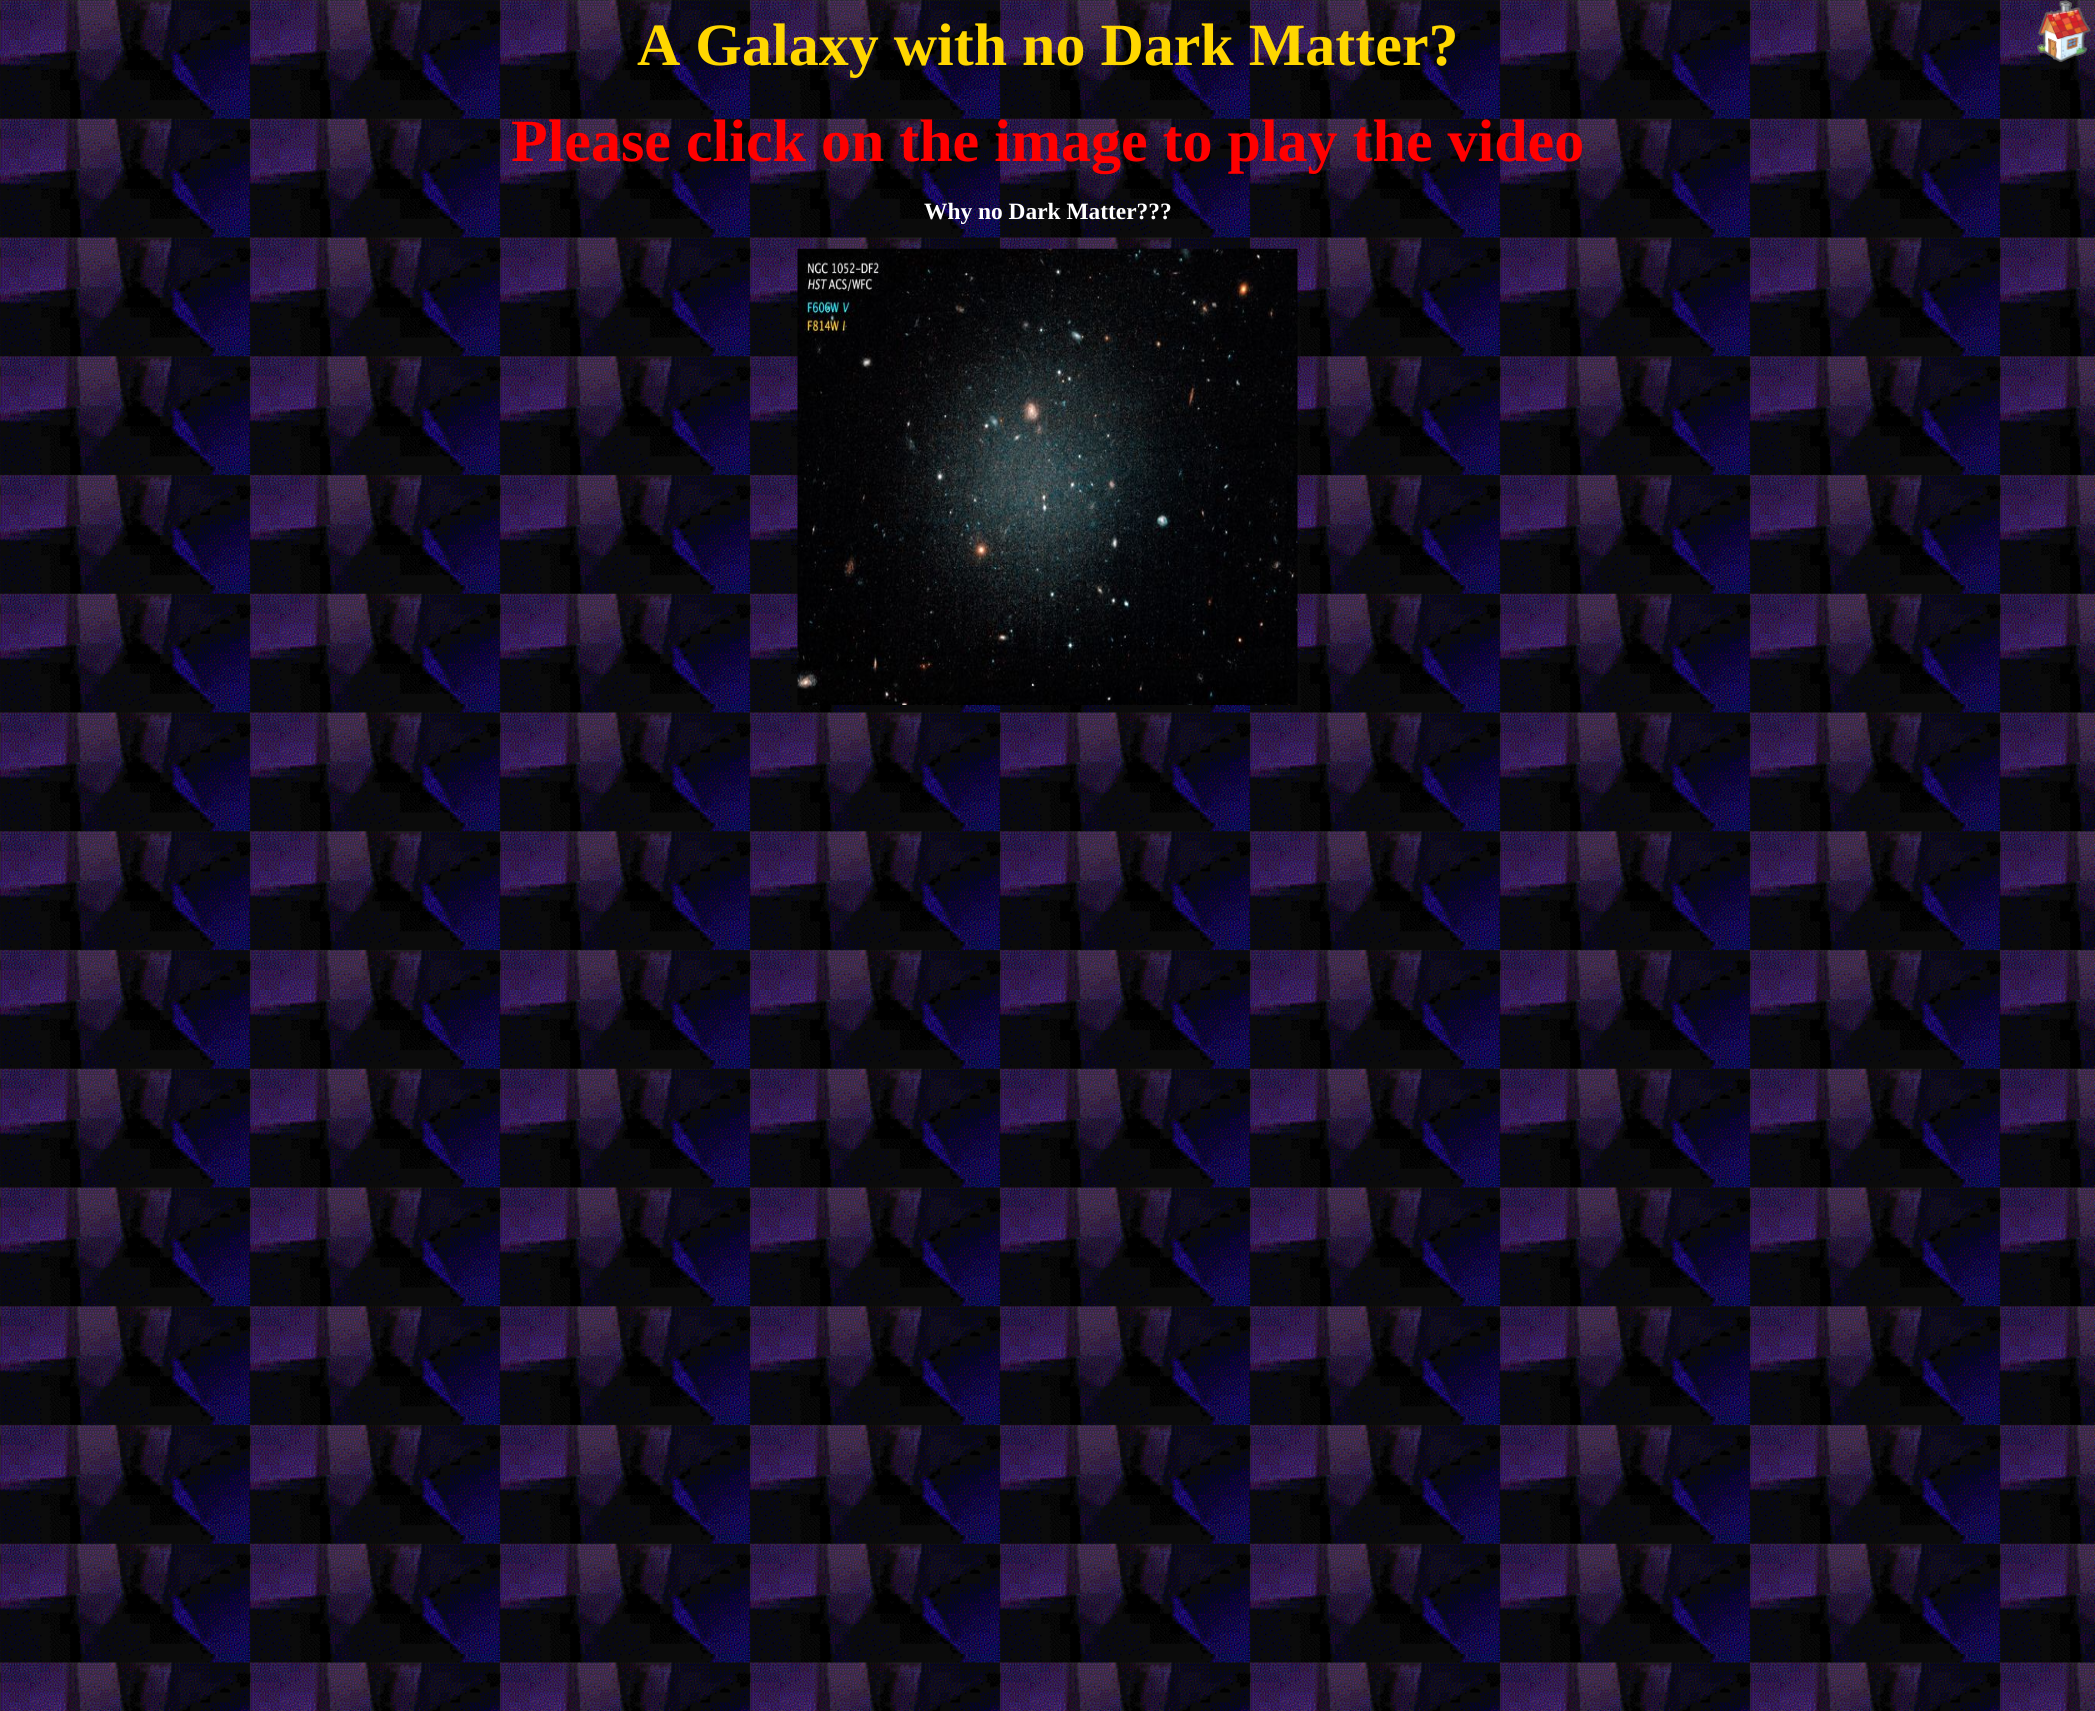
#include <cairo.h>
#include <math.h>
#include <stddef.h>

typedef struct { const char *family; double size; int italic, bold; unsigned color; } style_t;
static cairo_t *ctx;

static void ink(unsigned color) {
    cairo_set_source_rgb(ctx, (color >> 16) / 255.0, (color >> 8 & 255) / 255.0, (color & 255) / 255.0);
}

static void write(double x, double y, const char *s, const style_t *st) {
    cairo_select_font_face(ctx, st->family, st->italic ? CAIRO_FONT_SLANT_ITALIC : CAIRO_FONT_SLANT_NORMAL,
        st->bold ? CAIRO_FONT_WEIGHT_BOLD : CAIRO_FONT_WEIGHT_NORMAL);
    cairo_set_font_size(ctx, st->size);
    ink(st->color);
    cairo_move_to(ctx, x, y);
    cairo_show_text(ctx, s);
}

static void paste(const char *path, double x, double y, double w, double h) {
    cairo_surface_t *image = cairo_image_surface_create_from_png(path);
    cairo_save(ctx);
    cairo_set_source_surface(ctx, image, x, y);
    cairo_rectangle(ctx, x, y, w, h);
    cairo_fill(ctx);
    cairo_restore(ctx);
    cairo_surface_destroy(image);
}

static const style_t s1 = {"Liberation Serif", 60, 0, 1, 0xffd700};
static const style_t s2 = {"Liberation Serif", 60, 0, 1, 0xff0000};
static const style_t s3 = {"Liberation Serif", 23.4, 0, 1, 0xffffff};

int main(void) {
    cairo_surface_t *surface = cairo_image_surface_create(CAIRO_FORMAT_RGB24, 2095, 1711);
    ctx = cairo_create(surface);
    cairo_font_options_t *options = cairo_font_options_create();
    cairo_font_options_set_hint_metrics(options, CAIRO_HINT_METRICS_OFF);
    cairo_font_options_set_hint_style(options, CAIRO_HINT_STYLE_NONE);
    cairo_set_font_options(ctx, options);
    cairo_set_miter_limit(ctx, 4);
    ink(0xffffff);
    cairo_paint(ctx);
    paste("pic1.png", 0, 0, 2095, 1711);
    paste("pic2.png", 2037, 0, 54, 62);
    write(637, 65, "A Galaxy with no Dark Matter?", &s1);
    paste("pic3.png", 2037, 0, 54, 62);
    write(511, 161, "Please click on the image to play the video", &s2);
    write(924, 219, "Why no Dark Matter?\077?", &s3);
    paste("pic4.png", 797, 248, 501, 457);
    cairo_surface_write_to_png(surface, "screenshot.png");
    cairo_font_options_destroy(options);
    cairo_destroy(ctx);
    cairo_surface_destroy(surface);
    return 0;
}
